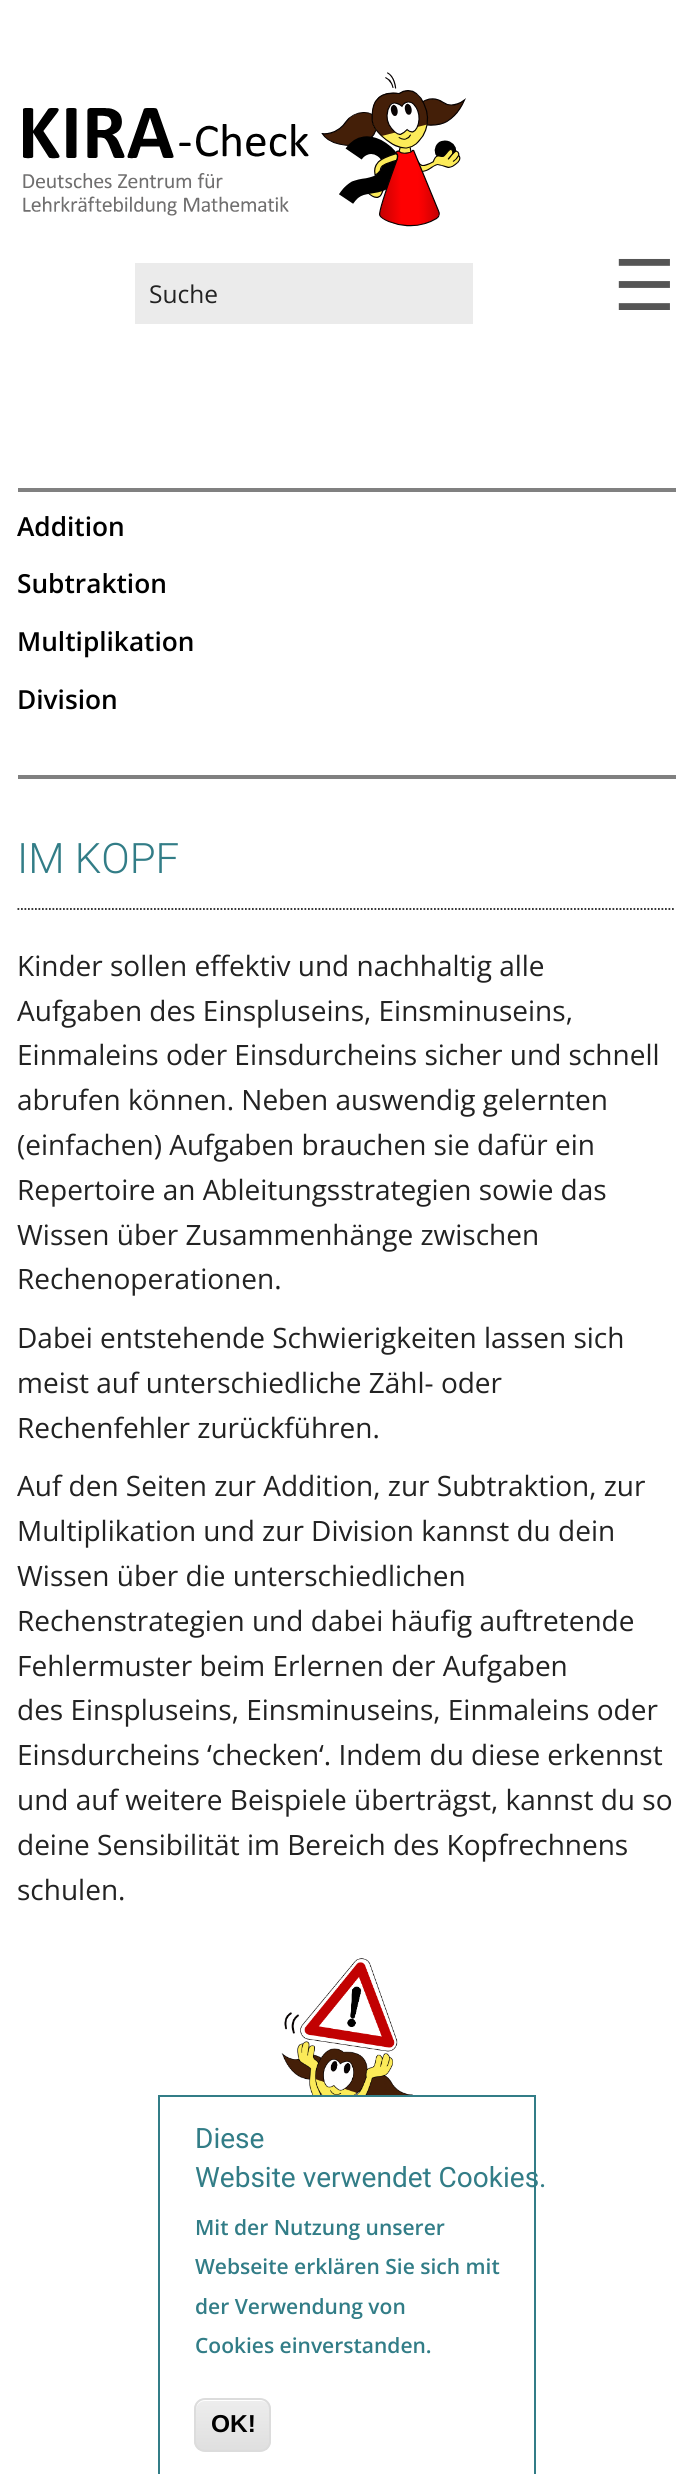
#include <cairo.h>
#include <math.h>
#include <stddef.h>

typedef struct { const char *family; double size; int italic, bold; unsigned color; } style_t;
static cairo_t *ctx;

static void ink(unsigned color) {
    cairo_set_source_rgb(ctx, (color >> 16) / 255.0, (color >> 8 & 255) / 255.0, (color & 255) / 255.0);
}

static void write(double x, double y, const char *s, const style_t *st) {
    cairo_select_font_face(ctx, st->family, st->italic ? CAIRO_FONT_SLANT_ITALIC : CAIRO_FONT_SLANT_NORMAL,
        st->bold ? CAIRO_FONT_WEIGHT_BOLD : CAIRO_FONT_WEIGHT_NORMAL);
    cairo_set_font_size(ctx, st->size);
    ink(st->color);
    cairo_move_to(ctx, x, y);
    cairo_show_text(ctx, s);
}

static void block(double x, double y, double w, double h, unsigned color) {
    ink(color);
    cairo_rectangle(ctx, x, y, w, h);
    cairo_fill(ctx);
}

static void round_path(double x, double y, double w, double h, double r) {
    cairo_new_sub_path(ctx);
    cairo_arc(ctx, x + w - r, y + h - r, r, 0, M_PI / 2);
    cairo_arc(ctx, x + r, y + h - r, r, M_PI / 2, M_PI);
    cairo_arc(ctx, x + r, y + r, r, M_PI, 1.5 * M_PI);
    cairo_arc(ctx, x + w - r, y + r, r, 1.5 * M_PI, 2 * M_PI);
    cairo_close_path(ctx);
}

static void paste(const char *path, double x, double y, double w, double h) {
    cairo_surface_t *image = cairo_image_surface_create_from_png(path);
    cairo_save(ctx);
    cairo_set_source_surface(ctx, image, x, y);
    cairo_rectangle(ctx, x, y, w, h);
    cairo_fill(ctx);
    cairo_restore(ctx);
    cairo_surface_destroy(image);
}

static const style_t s1 = {"Open Sans", 24.5, 0, 0, 0x222222};
static const style_t s2 = {"DejaVu Sans", 70, 0, 0, 0x555555};
static const style_t s3 = {"Open Sans SemiBold", 26.25, 0, 0, 0x000000};
static const style_t s4 = {"Roboto Light", 42, 0, 0, 0x327d87};
static const style_t s5 = {"Open Sans", 28, 0, 0, 0x222222};
static const style_t s6 = {"Roboto", 28, 0, 0, 0x327d87};
static const style_t s7 = {"Open Sans SemiBold", 21, 0, 0, 0x327d87};
static const style_t s8 = {"Liberation Sans", 24.5, 0, 1, 0x000000};

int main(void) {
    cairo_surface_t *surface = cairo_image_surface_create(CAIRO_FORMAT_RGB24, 692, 2474);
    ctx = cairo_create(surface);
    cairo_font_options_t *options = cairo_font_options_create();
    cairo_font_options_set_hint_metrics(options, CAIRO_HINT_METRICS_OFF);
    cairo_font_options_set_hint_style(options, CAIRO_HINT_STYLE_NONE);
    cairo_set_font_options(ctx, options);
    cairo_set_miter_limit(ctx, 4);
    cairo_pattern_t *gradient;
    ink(0xffffff);
    cairo_paint(ctx);
    paste("pic1.png", 23, 72, 443, 155);
    block(135, 263, 338, 61, 0xebebeb);
    write(149, 303, "Suche", &s1);
    write(613, 310, "☰", &s2);
    block(18, 488, 658, 4, 0x808080);
    block(18, 775, 658, 4, 0x808080);
    write(17, 536, "Addition", &s3);
    write(17, 593, "Subtraktion", &s3);
    write(17, 651, "Multiplikation", &s3);
    write(17, 709, "Division", &s3);
    cairo_new_path(ctx);
    cairo_move_to(ctx, 17.5, 909);
    cairo_line_to(ctx, 675.5, 909);
    ink(0x222222);
    cairo_set_line_width(ctx, 1.8);
    cairo_set_dash(ctx, (double[]){1.75, 1.75}, 2, 0);
    cairo_stroke(ctx);
    write(17, 873, "IM KOPF", &s4);
    write(17, 976, "Kinder sollen effektiv und nachhaltig alle", &s5);
    write(17, 1021, "Aufgaben des Einspluseins, Einsminuseins,", &s5);
    write(17, 1065, "Einmaleins oder Einsdurcheins sicher und schnell", &s5);
    write(17, 1110, "abrufen können. Neben auswendig gelernten", &s5);
    write(17, 1155, "(einfachen) Aufgaben brauchen sie dafür ein", &s5);
    write(17, 1200, "Repertoire an Ableitungsstrategien sowie das", &s5);
    write(17, 1245, "Wissen über Zusammenhänge zwischen", &s5);
    write(17, 1289, "Rechenoperationen.", &s5);
    write(17, 1348, "Dabei entstehende Schwierigkeiten lassen sich", &s5);
    write(17, 1393, "meist auf unterschiedliche Zähl- oder", &s5);
    write(17, 1438, "Rechenfehler zurückführen.", &s5);
    write(17, 1496, "Auf den Seiten zur Addition, zur Subtraktion, zur", &s5);
    write(17, 1541, "Multiplikation und zur Division kannst du dein", &s5);
    write(17, 1586, "Wissen über die unterschiedlichen", &s5);
    write(17, 1631, "Rechenstrategien und dabei häufig auftretende", &s5);
    write(17, 1676, "Fehlermuster beim Erlernen der Aufgaben", &s5);
    write(17, 1720, "des Einspluseins, Einsminuseins, Einmaleins oder", &s5);
    write(17, 1765, "Einsdurcheins ‘checken‘. Indem du diese erkennst", &s5);
    write(17, 1810, "und auf weitere Beispiele überträgst, kannst du so", &s5);
    write(17, 1855, "deine Sensibilität im Bereich des Kopfrechnens", &s5);
    write(17, 1900, "schulen.", &s5);
    paste("pic2.png", 281, 1958, 132, 137);
    cairo_rectangle(ctx, 159, 2096, 376, 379);
    ink(0x327d87);
    cairo_set_line_width(ctx, 2);
    cairo_set_dash(ctx, NULL, 0, 0);
    cairo_stroke(ctx);
    write(195, 2148, "Diese", &s6);
    write(195, 2187, "Website verwendet Cookies.", &s6);
    write(195, 2235, "Mit der Nutzung unserer", &s7);
    write(195, 2274, "Webseite erklären Sie sich mit", &s7);
    write(195, 2314, "der Verwendung von", &s7);
    write(195, 2353, "Cookies einverstanden.", &s7);
    cairo_save(ctx);
    round_path(194, 2398, 77, 54, 11);
    cairo_clip(ctx);
    gradient = cairo_pattern_create_linear(233, 2399, 233, 2450);
    cairo_pattern_add_color_stop_rgba(gradient, 0.05, 0.929, 0.929, 0.929, 1);
    cairo_pattern_add_color_stop_rgba(gradient, 1, 0.875, 0.875, 0.875, 1);
    cairo_set_source(ctx, gradient);
    cairo_pattern_destroy(gradient);
    cairo_rectangle(ctx, 194, 2399, 77, 51);
    cairo_fill(ctx);
    cairo_restore(ctx);
    ink(0xffffff);
    cairo_new_path(ctx);
    cairo_move_to(ctx, 205, 2401);
    cairo_line_to(ctx, 261, 2401);
    cairo_curve_to(ctx, 266, 2401, 270, 2405, 270, 2410);
    cairo_curve_to(ctx, 270, 2398, 262, 2399, 252, 2399);
    cairo_line_to(ctx, 214, 2399);
    cairo_curve_to(ctx, 204, 2399, 196, 2398, 196, 2410);
    cairo_curve_to(ctx, 196, 2405, 200, 2401, 205, 2401);
    cairo_close_path(ctx);
    cairo_fill(ctx);
    round_path(195, 2399, 75, 52, 10);
    ink(0xdcdcdc);
    cairo_stroke(ctx);
    write(211, 2432, "OK!", &s8);
    cairo_surface_write_to_png(surface, "screenshot.png");
    cairo_font_options_destroy(options);
    cairo_destroy(ctx);
    cairo_surface_destroy(surface);
    return 0;
}
